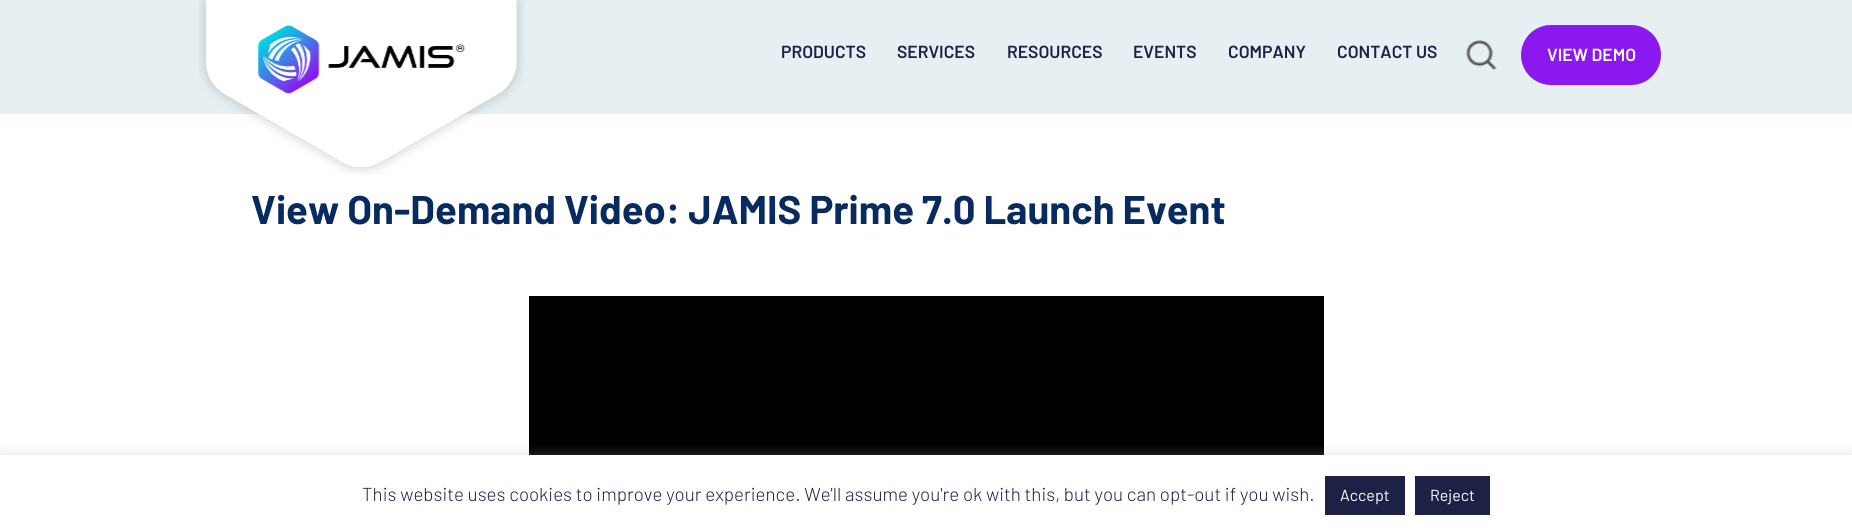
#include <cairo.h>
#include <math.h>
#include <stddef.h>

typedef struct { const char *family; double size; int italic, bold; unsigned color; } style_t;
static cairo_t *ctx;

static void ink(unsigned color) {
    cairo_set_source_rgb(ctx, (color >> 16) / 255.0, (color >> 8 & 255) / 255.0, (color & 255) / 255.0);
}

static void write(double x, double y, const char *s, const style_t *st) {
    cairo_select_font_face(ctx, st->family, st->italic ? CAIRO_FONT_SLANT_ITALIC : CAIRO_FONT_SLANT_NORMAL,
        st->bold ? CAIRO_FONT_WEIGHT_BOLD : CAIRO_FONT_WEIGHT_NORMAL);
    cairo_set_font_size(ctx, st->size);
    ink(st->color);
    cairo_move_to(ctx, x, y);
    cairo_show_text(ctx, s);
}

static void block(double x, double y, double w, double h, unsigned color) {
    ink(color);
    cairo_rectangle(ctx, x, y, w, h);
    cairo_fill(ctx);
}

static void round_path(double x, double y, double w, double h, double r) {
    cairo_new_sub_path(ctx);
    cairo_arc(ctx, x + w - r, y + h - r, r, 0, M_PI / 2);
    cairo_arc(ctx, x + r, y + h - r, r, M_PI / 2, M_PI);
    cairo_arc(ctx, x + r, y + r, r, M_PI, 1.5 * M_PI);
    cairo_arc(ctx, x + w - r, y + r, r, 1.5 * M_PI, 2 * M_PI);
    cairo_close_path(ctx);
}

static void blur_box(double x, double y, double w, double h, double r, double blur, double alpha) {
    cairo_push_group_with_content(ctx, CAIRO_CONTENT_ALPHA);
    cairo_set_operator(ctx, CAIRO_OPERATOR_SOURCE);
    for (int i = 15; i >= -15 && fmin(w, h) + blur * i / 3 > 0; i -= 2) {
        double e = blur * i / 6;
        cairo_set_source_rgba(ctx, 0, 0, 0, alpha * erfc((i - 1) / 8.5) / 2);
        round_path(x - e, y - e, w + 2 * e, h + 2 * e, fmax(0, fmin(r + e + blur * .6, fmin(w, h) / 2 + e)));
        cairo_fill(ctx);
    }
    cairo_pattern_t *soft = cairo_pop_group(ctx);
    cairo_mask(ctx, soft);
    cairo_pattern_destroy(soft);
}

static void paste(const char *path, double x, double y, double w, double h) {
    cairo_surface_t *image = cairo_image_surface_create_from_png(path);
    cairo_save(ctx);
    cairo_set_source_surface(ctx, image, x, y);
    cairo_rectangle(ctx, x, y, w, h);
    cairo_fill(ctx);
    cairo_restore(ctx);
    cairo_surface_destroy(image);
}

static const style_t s1 = {"Barlow SemiBold", 17.5, 0, 0, 0x1d2146};
static const style_t s2 = {"Barlow SemiBold", 17.5, 0, 0, 0xffffff};
static const style_t s3 = {"Barlow", 40, 0, 1, 0x072a60};
static const style_t s4 = {"Barlow Light", 18.75, 0, 0, 0x1d2146};
static const style_t s5 = {"Barlow", 16, 0, 0, 0xffffff};

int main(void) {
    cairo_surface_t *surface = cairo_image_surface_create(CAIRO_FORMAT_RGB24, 1852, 529);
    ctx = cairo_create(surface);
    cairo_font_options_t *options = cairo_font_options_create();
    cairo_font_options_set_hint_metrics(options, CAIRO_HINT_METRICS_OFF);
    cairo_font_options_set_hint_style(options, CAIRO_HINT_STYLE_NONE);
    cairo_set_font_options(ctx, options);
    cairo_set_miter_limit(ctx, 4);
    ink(0xffffff);
    cairo_paint(ctx);
    block(0, 0, 1852, 114, 0xe6f0f3);
    paste("pic1.png", 198, 0, 327, 175);
    write(781, 58, "PRODUCTS", &s1);
    write(897, 58, "SERVICES", &s1);
    write(1007, 58, "RESOURCES", &s1);
    write(1133, 58, "EVENTS", &s1);
    write(1228, 58, "COMPANY", &s1);
    write(1337, 58, "CONTACT US", &s1);
    paste("pic2.png", 1466, 40, 31, 30);
    ink(0x8c18f0);
    round_path(1521, 25, 140, 60, 30);
    cairo_fill(ctx);
    write(1547, 61, "VIEW DEMO", &s2);
    write(251, 224, "View On-Demand Video: JAMIS Prime 7.0 Launch Event", &s3);
    block(529, 296, 795, 159, 0x000000);
    ink(0xacabab);
    blur_box(0, 454, 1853, 75, 0, 6, 0.3);
    block(0, 455, 1852, 74, 0xffffff);
    write(362, 501, "This website uses cookies to improve your experience. We'll assume you're ok with this, but you can opt-out if you wish.", &s4);
    block(1325, 476, 80, 39, 0x1d2146);
    write(1340, 501, "Accept", &s5);
    block(1415, 476, 75, 39, 0x1d2146);
    write(1430, 501, "Reject", &s5);
    cairo_surface_write_to_png(surface, "screenshot.png");
    cairo_font_options_destroy(options);
    cairo_destroy(ctx);
    cairo_surface_destroy(surface);
    return 0;
}
